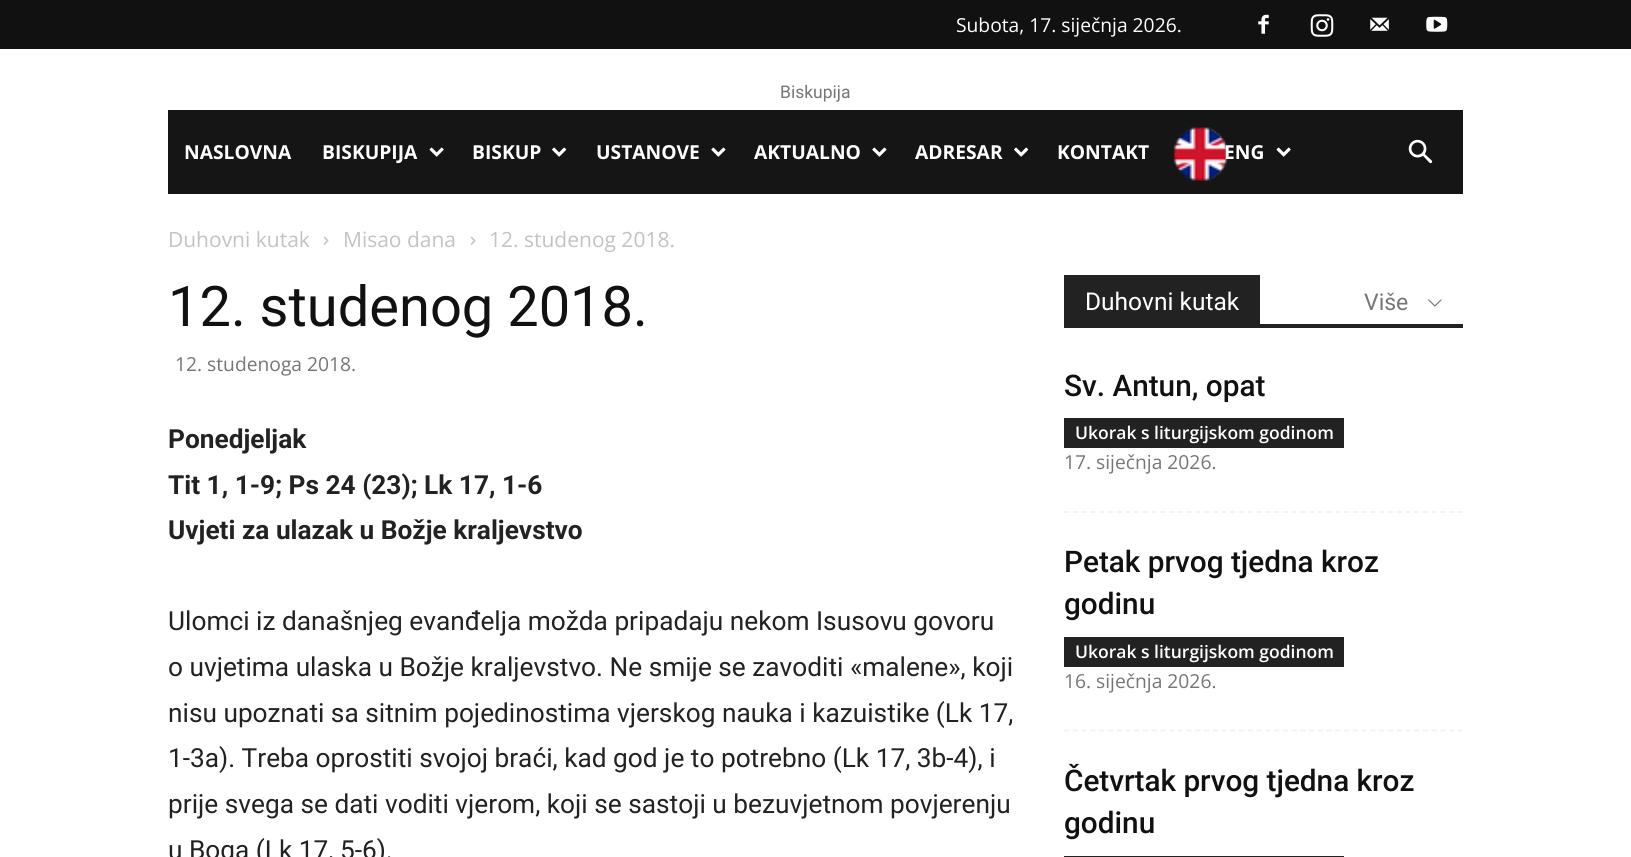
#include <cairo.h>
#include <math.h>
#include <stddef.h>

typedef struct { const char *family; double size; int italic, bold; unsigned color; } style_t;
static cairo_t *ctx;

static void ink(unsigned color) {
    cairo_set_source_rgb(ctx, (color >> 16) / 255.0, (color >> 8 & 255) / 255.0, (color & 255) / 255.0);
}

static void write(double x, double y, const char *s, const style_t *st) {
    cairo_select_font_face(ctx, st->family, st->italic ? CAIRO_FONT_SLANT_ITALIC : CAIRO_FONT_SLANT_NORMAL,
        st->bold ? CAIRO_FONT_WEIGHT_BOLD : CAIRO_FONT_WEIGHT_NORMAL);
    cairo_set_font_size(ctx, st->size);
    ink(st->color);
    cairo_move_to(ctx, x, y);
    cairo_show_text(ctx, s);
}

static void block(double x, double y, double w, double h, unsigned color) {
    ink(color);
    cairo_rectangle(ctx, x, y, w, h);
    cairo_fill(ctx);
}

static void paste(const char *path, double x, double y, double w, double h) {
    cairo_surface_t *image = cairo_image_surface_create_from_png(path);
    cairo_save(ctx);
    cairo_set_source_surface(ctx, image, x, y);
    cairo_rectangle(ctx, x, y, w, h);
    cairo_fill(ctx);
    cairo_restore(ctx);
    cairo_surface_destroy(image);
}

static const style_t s1 = {"Open Sans", 19.25, 0, 0, 0xffffff};
static const style_t s2 = {"Roboto", 17.5, 0, 0, 0x767676};
static const style_t s3 = {"Open Sans", 19.25, 0, 1, 0xffffff};
static const style_t s4 = {"Open Sans", 21, 0, 0, 0xc3c3c3};
static const style_t s5 = {"Roboto", 56, 0, 0, 0x111111};
static const style_t s6 = {"Open Sans", 19.25, 0, 0, 0x767676};
static const style_t s7 = {"Roboto", 26.25, 0, 1, 0x222222};
static const style_t s8 = {"Roboto", 26.25, 0, 0, 0x222222};
static const style_t s9 = {"Roboto", 24.5, 0, 0, 0xffffff};
static const style_t s10 = {"Roboto", 23, 0, 0, 0x767676};
static const style_t s11 = {"Roboto Medium", 29.75, 0, 0, 0x111111};
static const style_t s12 = {"Open Sans SemiBold", 17.5, 0, 0, 0xffffff};

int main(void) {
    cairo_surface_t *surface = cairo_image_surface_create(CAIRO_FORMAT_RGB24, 1631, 857);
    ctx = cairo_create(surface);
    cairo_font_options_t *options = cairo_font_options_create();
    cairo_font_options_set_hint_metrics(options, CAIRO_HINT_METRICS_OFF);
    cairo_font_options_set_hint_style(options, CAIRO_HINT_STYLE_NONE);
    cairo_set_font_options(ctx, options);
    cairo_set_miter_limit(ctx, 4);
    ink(0xffffff);
    cairo_paint(ctx);
    block(0, 0, 1631, 49, 0x111111);
    write(956, 32, "Subota, 17. siječnja 2026.", &s1);
    paste("pic1.png", 1258, 14, 11, 20);
    paste("pic2.png", 1310, 14, 24, 23);
    paste("pic3.png", 1370, 17, 19, 14);
    paste("pic4.png", 1426, 16, 22, 16);
    write(780, 98, "Biskupija", &s2);
    block(168, 110, 1295, 84, 0x151515);
    write(184, 159, "NASLOVNA", &s3);
    write(322, 159, "BISKUPIJA", &s3);
    paste("pic5.png", 429, 147, 15, 10);
    write(472, 159, "BISKUP", &s3);
    paste("pic6.png", 552, 147, 15, 10);
    write(596, 159, "USTANOVE", &s3);
    paste("pic7.png", 711, 147, 15, 10);
    write(754, 159, "AKTUALNO", &s3);
    paste("pic7.png", 872, 147, 15, 10);
    write(915, 159, "ADRESAR", &s3);
    paste("pic6.png", 1014, 147, 15, 10);
    write(1057, 159, "KONTAKT", &s3);
    paste("pic8.png", 1173, 127, 55, 54);
    write(1224, 159, "ENG", &s3);
    paste("pic5.png", 1276, 147, 15, 10);
    paste("pic9.png", 1408, 139, 25, 25);
    write(168, 247, "Duhovni kutak", &s4);
    paste("pic10.png", 323, 236, 6, 9);
    write(343, 247, "Misao dana", &s4);
    paste("pic10.png", 470, 236, 6, 9);
    write(489, 247, "12. studenog 2018.", &s4);
    write(168, 326, "12. studenog 2018.", &s5);
    write(175, 371, "12. studenoga 2018.", &s6);
    write(168, 448, "Ponedjeljak", &s7);
    write(168, 494, "Tit 1, 1-9; Ps 24 (23); Lk 17, 1-6", &s7);
    write(168, 539, "Uvjeti za ulazak u Božje kraljevstvo", &s7);
    write(168, 630, "Ulomci iz današnjeg evanđelja možda pripadaju nekom Isusovu govoru", &s8);
    write(168, 676, "o uvjetima ulaska u Božje kraljevstvo. Ne smije se zavoditi «malene», koji", &s8);
    write(168, 722, "nisu upoznati sa sitnim pojedinostima vjerskog nauka i kazuistike (Lk 17,", &s8);
    write(168, 767, "1-3a). Treba oprostiti svojoj braći, kad god je to potrebno (Lk 17, 3b-4), i", &s8);
    write(168, 813, "prije svega se dati voditi vjerom, koji se sastoji u bezuvjetnom povjerenju", &s8);
    write(168, 859, "u Boga (Lk 17, 5-6).", &s8);
    block(1064, 324, 399, 4, 0x222222);
    block(1064, 275, 196, 49, 0x222222);
    write(1085, 310, "Duhovni kutak", &s9);
    write(1364, 310, "Više", &s10);
    paste("pic11.png", 1428, 299, 14, 8);
    cairo_new_path(ctx);
    cairo_move_to(ctx, 1064, 512);
    cairo_line_to(ctx, 1463, 512);
    ink(0xf2f2f2);
    cairo_set_line_width(ctx, 1.8);
    cairo_set_dash(ctx, (double[]){5.25, 3.5}, 2, 0);
    cairo_stroke(ctx);
    write(1064, 396, "Sv. Antun, opat", &s11);
    block(1064, 418, 280, 30, 0x222222);
    write(1075, 439, "Ukorak s liturgijskom godinom", &s12);
    write(1064, 469, "17. siječnja 2026.", &s6);
    cairo_new_path(ctx);
    cairo_move_to(ctx, 1064, 730.5);
    cairo_line_to(ctx, 1463, 730.5);
    ink(0xf2f2f2);
    cairo_stroke(ctx);
    write(1064, 572, "Petak prvog tjedna kroz", &s11);
    write(1064, 614, "godinu", &s11);
    block(1064, 637, 280, 30, 0x222222);
    write(1075, 658, "Ukorak s liturgijskom godinom", &s12);
    write(1064, 688, "16. siječnja 2026.", &s6);
    write(1064, 791, "Četvrtak prvog tjedna kroz", &s11);
    write(1064, 833, "godinu", &s11);
    block(1064, 856, 280, 1, 0x222222);
    cairo_surface_write_to_png(surface, "screenshot.png");
    cairo_font_options_destroy(options);
    cairo_destroy(ctx);
    cairo_surface_destroy(surface);
    return 0;
}
